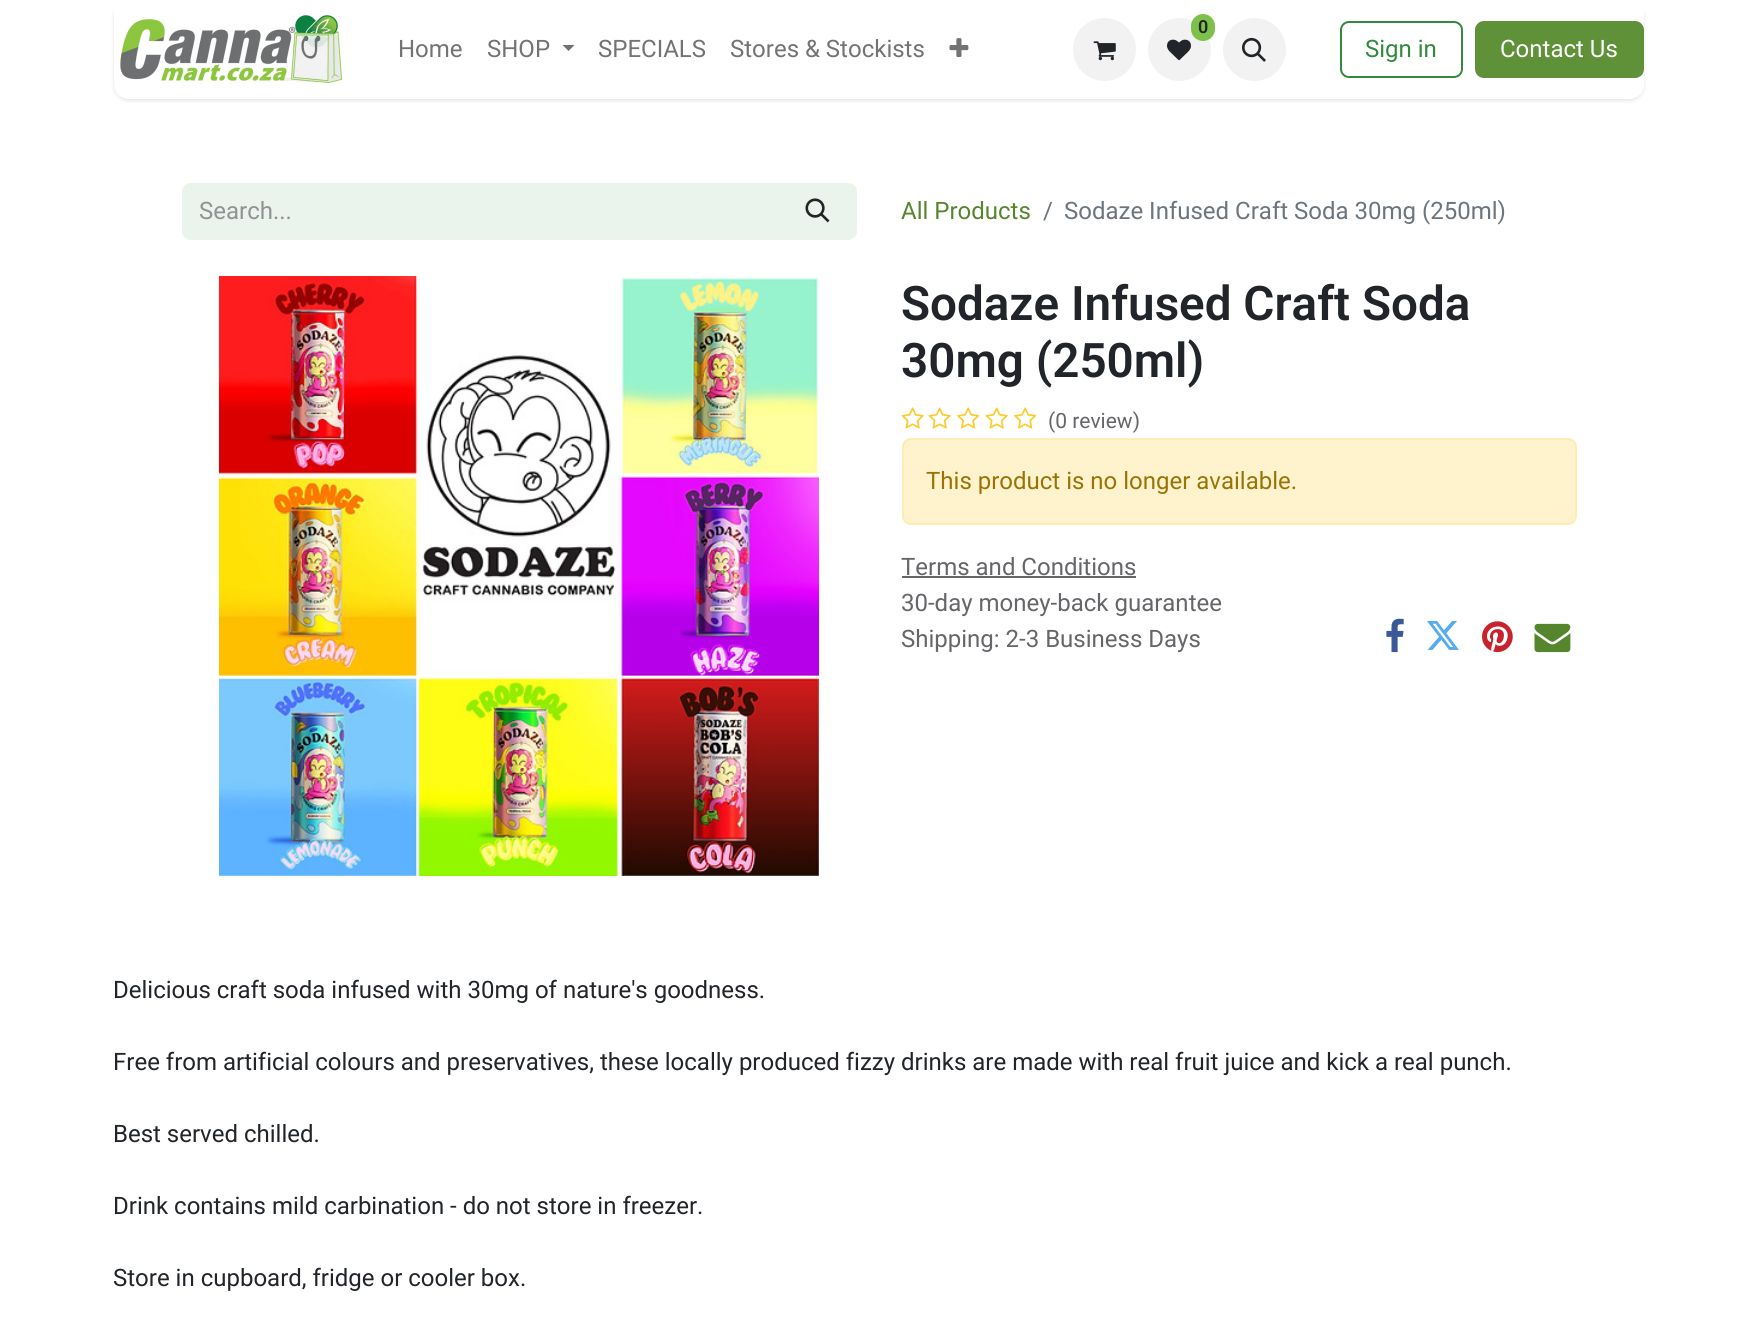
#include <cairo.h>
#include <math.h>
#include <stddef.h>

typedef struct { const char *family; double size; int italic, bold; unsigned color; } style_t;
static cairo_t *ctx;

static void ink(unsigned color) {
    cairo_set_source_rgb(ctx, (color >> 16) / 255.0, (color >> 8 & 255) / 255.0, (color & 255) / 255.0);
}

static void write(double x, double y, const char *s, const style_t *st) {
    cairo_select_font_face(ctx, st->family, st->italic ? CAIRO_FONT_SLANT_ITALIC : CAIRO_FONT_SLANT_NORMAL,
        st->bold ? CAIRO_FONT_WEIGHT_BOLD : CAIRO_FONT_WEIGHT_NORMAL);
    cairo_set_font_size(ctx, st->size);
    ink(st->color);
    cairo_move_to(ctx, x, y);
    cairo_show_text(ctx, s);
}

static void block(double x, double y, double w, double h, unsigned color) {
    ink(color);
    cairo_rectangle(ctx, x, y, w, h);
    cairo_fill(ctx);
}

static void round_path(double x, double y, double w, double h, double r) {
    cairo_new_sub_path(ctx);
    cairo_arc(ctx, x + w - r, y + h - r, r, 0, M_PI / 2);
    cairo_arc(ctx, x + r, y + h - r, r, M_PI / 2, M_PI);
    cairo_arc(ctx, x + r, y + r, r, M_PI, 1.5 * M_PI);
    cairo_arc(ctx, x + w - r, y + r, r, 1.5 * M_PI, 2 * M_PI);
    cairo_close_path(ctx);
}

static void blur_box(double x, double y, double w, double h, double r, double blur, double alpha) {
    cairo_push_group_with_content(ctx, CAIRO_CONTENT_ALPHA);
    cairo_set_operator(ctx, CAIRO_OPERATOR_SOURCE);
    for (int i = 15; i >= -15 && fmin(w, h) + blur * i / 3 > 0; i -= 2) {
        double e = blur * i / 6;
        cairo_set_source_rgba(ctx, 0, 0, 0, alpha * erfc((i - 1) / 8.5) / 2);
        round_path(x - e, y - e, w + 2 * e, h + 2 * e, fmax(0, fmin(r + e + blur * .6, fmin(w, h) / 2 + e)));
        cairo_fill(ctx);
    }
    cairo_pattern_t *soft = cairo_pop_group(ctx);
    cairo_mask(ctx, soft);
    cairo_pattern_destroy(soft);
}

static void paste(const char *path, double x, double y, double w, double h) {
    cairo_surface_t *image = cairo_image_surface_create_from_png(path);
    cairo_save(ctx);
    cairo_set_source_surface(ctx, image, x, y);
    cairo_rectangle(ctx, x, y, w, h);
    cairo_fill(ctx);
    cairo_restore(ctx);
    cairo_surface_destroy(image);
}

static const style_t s1 = {"Roboto", 24, 0, 0, 0x737373};
static const style_t s2 = {"Roboto SemiBold", 18, 0, 0, 0x212529};
static const style_t s3 = {"Roboto", 24, 0, 0, 0x318a3d};
static const style_t s4 = {"Roboto", 24, 0, 0, 0xffffff};
static const style_t s5 = {"Roboto", 24, 0, 0, 0x909294};
static const style_t s6 = {"Roboto", 24, 0, 0, 0x55862e};
static const style_t s7 = {"Roboto", 24, 0, 0, 0x6c757d};
static const style_t s8 = {"Roboto SemiBold", 47.6, 0, 0, 0x212529};
static const style_t s9 = {"Roboto", 21, 0, 0, 0x646669};
static const style_t s10 = {"Roboto", 24, 0, 0, 0x997404};
static const style_t s11 = {"Roboto", 24, 0, 0, 0x646669};
static const style_t s12 = {"Roboto", 24, 0, 0, 0x212529};

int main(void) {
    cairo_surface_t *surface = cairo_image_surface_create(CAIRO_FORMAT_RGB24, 1756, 1322);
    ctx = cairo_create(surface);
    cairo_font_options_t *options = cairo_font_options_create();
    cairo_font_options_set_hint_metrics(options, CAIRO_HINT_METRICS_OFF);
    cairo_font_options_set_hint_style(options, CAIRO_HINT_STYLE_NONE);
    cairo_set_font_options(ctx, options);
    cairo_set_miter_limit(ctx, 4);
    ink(0xffffff);
    cairo_paint(ctx);
    ink(0x000000);
    blur_box(114, 2, 1530, 99, 15, 2, 0.1);
    ink(0xffffff);
    cairo_new_path(ctx);
    cairo_move_to(ctx, 114, 0);
    cairo_line_to(ctx, 1644, 0);
    cairo_line_to(ctx, 1644, 84);
    cairo_curve_to(ctx, 1644, 92.5, 1637.5, 99, 1629, 99);
    cairo_line_to(ctx, 129, 99);
    cairo_curve_to(ctx, 120.5, 99, 114, 92.5, 114, 84);
    cairo_close_path(ctx);
    cairo_fill(ctx);
    paste("pic1.png", 120, 15, 223, 68);
    write(398, 57, "Home", &s1);
    write(487, 57, "SHOP", &s1);
    cairo_new_path(ctx);
    cairo_move_to(ctx, 562.5, 45);
    cairo_line_to(ctx, 574.5, 45);
    cairo_line_to(ctx, 568.5, 51);
    cairo_close_path(ctx);
    cairo_fill(ctx);
    write(598, 57, "SPECIALS", &s1);
    write(730, 57, "Stores & Stockists", &s1);
    paste("pic2.png", 949, 38, 20, 19);
    ink(0xf2f2f2);
    cairo_arc(ctx, 1104.5, 49.5, 31.5, 0, 2 * M_PI);
    cairo_fill(ctx);
    paste("pic3.png", 1093, 41, 23, 20);
    cairo_arc(ctx, 1179.5, 49.5, 31.5, 0, 2 * M_PI);
    cairo_fill(ctx);
    ink(0x7ec14a);
    round_path(1191, 14, 24, 27, 12);
    cairo_fill(ctx);
    write(1198, 33, "0", &s2);
    paste("pic4.png", 1167, 39, 24, 22);
    ink(0xf2f2f2);
    cairo_arc(ctx, 1254.5, 49.5, 31.5, 0, 2 * M_PI);
    cairo_fill(ctx);
    paste("pic5.png", 1242, 37, 24, 25);
    round_path(1341, 22, 121, 55, 8);
    ink(0x318a3d);
    cairo_stroke(ctx);
    write(1365, 57, "Sign in", &s3);
    ink(0x5f9138);
    round_path(1475, 21, 169, 57, 9);
    cairo_fill(ctx);
    write(1500, 57, "Contact Us", &s4);
    ink(0xeaf3ec);
    cairo_new_path(ctx);
    cairo_move_to(ctx, 191, 183);
    cairo_line_to(ctx, 782, 183);
    cairo_line_to(ctx, 782, 240);
    cairo_line_to(ctx, 191, 240);
    cairo_curve_to(ctx, 186, 240, 182, 236, 182, 231);
    cairo_line_to(ctx, 182, 192);
    cairo_curve_to(ctx, 182, 187, 186, 183, 191, 183);
    cairo_close_path(ctx);
    cairo_fill(ctx);
    write(199, 219, "Search...", &s5);
    ink(0xeaf3ec);
    cairo_new_path(ctx);
    cairo_move_to(ctx, 781, 184);
    cairo_line_to(ctx, 848, 184);
    cairo_curve_to(ctx, 852.5, 184, 856, 187.5, 856, 192);
    cairo_line_to(ctx, 856, 231);
    cairo_curve_to(ctx, 856, 235.5, 852.5, 239, 848, 239);
    cairo_line_to(ctx, 781, 239);
    cairo_close_path(ctx);
    cairo_fill_preserve(ctx);
    cairo_stroke(ctx);
    paste("pic6.png", 805, 198, 25, 25);
    write(901, 219, "All Products", &s6);
    write(1043, 219, "/", &s7);
    write(1064, 219, "Sodaze Infused Craft Soda 30mg (250ml)", &s7);
    paste("pic7.png", 219, 276, 600, 600);
    write(901, 320, "Sodaze Infused Craft Soda", &s8);
    write(901, 377, "30mg (250ml)", &s8);
    paste("pic8.png", 901, 407, 23, 22);
    paste("pic8.png", 928, 407, 23, 22);
    paste("pic9.png", 957, 407, 23, 22);
    paste("pic8.png", 985, 407, 23, 22);
    paste("pic9.png", 1014, 407, 23, 22);
    write(1048, 428, "(0 review)", &s9);
    ink(0xfff3cd);
    round_path(903, 439, 673, 85, 8);
    cairo_fill_preserve(ctx);
    ink(0xffecb5);
    cairo_stroke(ctx);
    write(926, 489, "This product is no longer available.", &s10);
    write(901, 575, "Terms and Conditions", &s11);
    block(902, 576, 234, 2, 0x646669);
    write(901, 611, "30-day money-back guarantee", &s11);
    write(901, 647, "Shipping: 2-3 Business Days", &s11);
    paste("pic10.png", 1386, 618, 18, 35);
    paste("pic11.png", 1427, 620, 32, 30);
    paste("pic12.png", 1482, 621, 31, 32);
    paste("pic13.png", 1534, 623, 37, 30);
    write(113, 998, "Delicious craft soda infused with 30mg of nature's goodness.", &s12);
    write(113, 1070, "Free from artificial colours and preservatives, these locally produced fizzy drinks are made with real fruit juice and kick a real punch.", &s12);
    write(113, 1142, "Best served chilled.", &s12);
    write(113, 1214, "Drink contains mild carbination - do not store in freezer.", &s12);
    write(113, 1286, "Store in cupboard, fridge or cooler box.", &s12);
    cairo_surface_write_to_png(surface, "screenshot.png");
    cairo_font_options_destroy(options);
    cairo_destroy(ctx);
    cairo_surface_destroy(surface);
    return 0;
}
